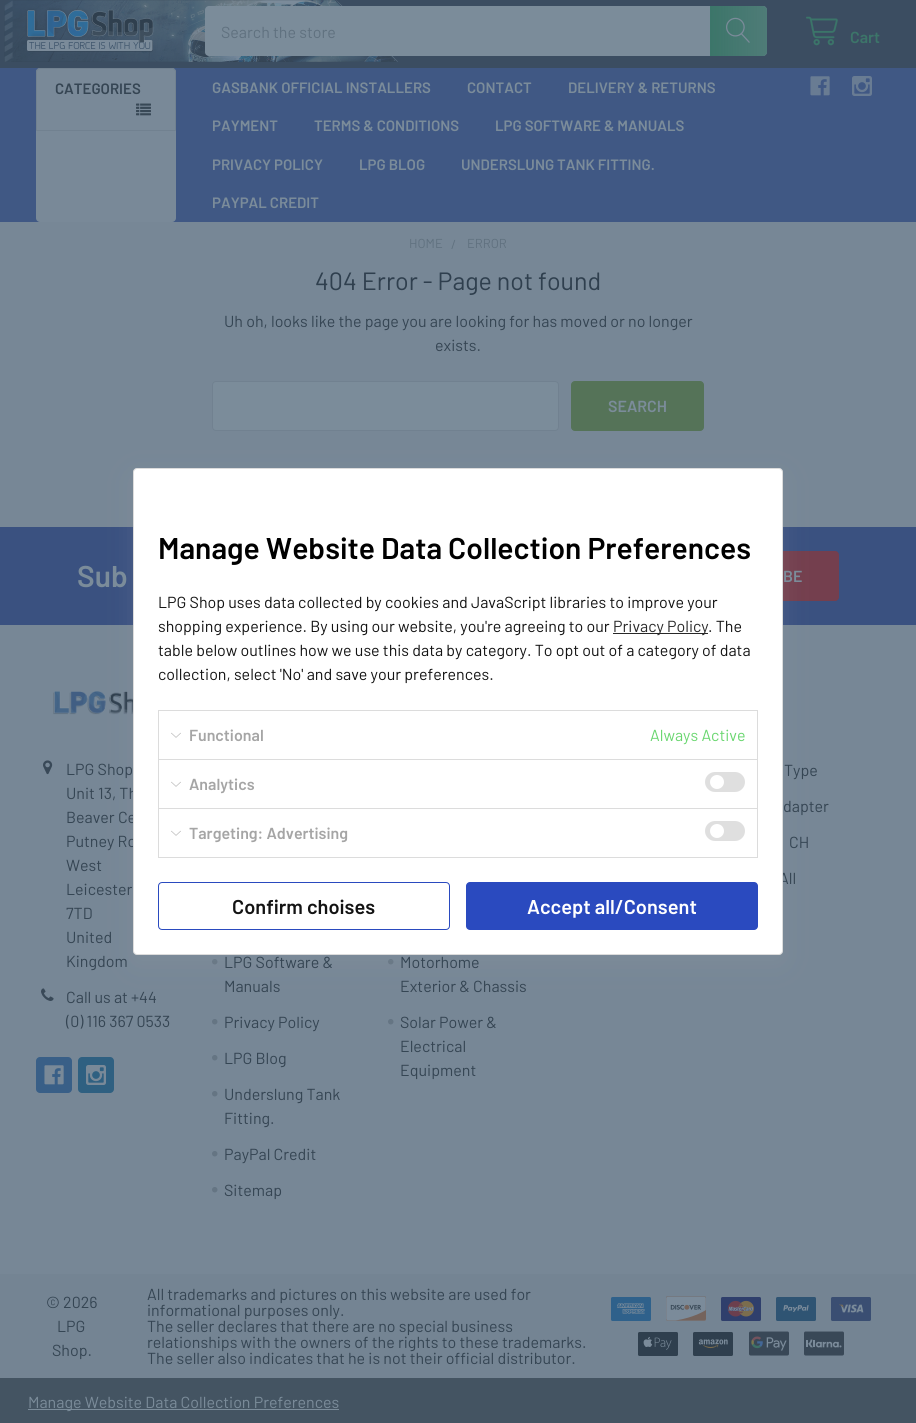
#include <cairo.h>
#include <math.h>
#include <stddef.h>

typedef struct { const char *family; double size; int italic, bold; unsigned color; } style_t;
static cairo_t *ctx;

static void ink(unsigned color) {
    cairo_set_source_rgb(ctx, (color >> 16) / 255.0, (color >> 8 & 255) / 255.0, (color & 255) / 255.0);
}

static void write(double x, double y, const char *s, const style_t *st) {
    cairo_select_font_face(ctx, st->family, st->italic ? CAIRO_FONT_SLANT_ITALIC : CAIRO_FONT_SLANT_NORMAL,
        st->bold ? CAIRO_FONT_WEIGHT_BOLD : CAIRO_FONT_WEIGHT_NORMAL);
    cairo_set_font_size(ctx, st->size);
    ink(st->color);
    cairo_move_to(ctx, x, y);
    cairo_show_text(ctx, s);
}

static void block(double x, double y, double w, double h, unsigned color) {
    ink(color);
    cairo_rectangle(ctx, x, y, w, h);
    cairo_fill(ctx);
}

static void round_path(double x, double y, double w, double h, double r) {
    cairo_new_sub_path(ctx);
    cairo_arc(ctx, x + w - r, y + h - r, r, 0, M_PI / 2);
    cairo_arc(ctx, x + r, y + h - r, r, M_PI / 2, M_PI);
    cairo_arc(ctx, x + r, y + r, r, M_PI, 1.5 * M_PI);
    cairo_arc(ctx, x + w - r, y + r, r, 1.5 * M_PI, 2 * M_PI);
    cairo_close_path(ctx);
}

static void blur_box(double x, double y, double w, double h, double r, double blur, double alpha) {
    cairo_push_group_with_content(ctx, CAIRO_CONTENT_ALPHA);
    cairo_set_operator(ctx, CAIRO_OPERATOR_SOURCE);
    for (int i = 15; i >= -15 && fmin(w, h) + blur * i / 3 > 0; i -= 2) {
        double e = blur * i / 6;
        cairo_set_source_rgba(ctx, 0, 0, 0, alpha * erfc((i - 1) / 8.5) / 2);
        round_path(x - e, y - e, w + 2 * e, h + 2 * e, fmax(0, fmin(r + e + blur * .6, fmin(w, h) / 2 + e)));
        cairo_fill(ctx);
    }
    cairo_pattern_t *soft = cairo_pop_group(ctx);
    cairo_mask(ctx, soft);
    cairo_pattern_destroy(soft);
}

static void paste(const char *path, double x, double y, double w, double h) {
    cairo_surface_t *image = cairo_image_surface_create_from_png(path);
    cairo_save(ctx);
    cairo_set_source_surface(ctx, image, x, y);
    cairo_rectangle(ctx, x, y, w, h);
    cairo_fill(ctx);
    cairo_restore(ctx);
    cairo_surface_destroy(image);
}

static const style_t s1 = {"Barlow", 16, 0, 0, 0x60717f};
static const style_t s2 = {"Barlow SemiBold", 16, 0, 0, 0x3c7569};
static const style_t s3 = {"Barlow SemiBold", 15, 0, 0, 0x354553};
static const style_t s4 = {"Barlow SemiBold", 15, 0, 0, 0x7b8c9a};
static const style_t s5 = {"Barlow", 13, 0, 0, 0x60717f};
static const style_t s6 = {"Barlow", 25, 0, 0, 0x2f3f4e};
static const style_t s7 = {"Barlow", 16, 0, 0, 0x354553};
static const style_t s8 = {"Barlow SemiBold", 16, 0, 0, 0x7b8c9a};
static const style_t s9 = {"Barlow SemiBold", 30, 0, 0, 0x000000};
static const style_t s10 = {"Barlow", 16, 0, 0, 0x131313};
static const style_t s11 = {"Barlow", 16, 0, 0, 0x282828};
static const style_t s12 = {"Barlow SemiBold", 16, 0, 0, 0xa5a5a5};
static const style_t s13 = {"Barlow", 16, 0, 0, 0x69d66f};
static const style_t s14 = {"Barlow SemiBold", 20, 0, 0, 0x131313};
static const style_t s15 = {"Barlow SemiBold", 20, 0, 0, 0xffffff};
static const style_t s16 = {"Barlow SemiBold", 30, 0, 0, 0x7b8c9a};
static const style_t s17 = {"Barlow", 16, 0, 0, 0x7b8c9a};

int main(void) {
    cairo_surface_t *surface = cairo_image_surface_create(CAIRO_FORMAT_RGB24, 916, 1423);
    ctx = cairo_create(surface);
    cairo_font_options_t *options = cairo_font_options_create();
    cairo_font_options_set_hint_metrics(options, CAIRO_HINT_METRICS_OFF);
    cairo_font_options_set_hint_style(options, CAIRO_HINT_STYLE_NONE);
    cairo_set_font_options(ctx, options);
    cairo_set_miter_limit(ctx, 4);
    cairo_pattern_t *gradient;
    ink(0x778796);
    cairo_paint(ctx);
    block(0, 0, 916, 68, 0x3b4d61);
    paste("pic1.png", 4, 0, 394, 62);
    ink(0x7b8c9a);
    round_path(205, 6, 562, 50, 4);
    cairo_fill(ctx);
    write(221, 38, "Search the store", &s1);
    gradient = cairo_pattern_create_linear(710, 31, 767, 31);
    cairo_pattern_add_color_stop_rgba(gradient, 0, 0.235, 0.459, 0.412, 1);
    cairo_pattern_add_color_stop_rgba(gradient, 1, 0.235, 0.459, 0.412, 0.7);
    cairo_set_source(ctx, gradient);
    cairo_pattern_destroy(gradient);
    cairo_new_path(ctx);
    cairo_move_to(ctx, 710, 6);
    cairo_line_to(ctx, 763, 6);
    cairo_curve_to(ctx, 765, 6, 767, 8, 767, 10);
    cairo_line_to(ctx, 767, 52);
    cairo_curve_to(ctx, 767, 54, 765, 56, 763, 56);
    cairo_line_to(ctx, 710, 56);
    cairo_close_path(ctx);
    cairo_fill(ctx);
    paste("pic2.png", 726, 17, 24, 26);
    paste("pic3.png", 806, 16, 32, 30);
    write(850, 43, "Cart", &s2);
    block(0, 68, 916, 154, 0x405884);
    ink(0x798998);
    round_path(36, 68, 140, 154, 4);
    cairo_fill(ctx);
    cairo_new_path(ctx);
    cairo_move_to(ctx, 40, 68.5);
    cairo_line_to(ctx, 172, 68.5);
    cairo_curve_to(ctx, 174, 68.5, 175.5, 70, 175.5, 72);
    cairo_line_to(ctx, 175.5, 130.5);
    cairo_line_to(ctx, 36.5, 130.5);
    cairo_line_to(ctx, 36.5, 72);
    cairo_curve_to(ctx, 36.5, 70, 38, 68.5, 40, 68.5);
    cairo_close_path(ctx);
    ink(0x718190);
    cairo_set_line_width(ctx, 1);
    cairo_stroke(ctx);
    write(55, 94, "CATEGORIES", &s3);
    paste("pic4.png", 136, 103, 15, 13);
    write(212, 93, "GASBANK OFFICIAL INSTALLERS", &s4);
    write(467, 93, "CONTACT", &s4);
    write(568, 93, "DELIVERY & RETURNS", &s4);
    write(212, 131, "PAYMENT", &s4);
    write(314, 131, "TERMS & CONDITIONS", &s4);
    write(495, 131, "LPG SOFTWARE & MANUALS", &s4);
    write(212, 170, "PRIVACY POLICY", &s4);
    write(359, 170, "LPG BLOG", &s4);
    write(461, 170, "UNDERSLUNG TANK FITTING.", &s4);
    write(212, 208, "PAYPAL CREDIT", &s4);
    paste("pic5.png", 810, 76, 20, 20);
    paste("pic6.png", 852, 76, 20, 20);
    write(409, 248, "HOME", &s5);
    write(451, 249, "/", &s5);
    write(467, 248, "ERROR", &s5);
    write(315, 290, "404 Error - Page not found", &s6);
    write(224, 327, "Uh oh, looks like the page you are looking for has moved or no longer", &s7);
    write(435, 351, "exists.", &s7);
    ink(0x7b8c9a);
    round_path(212.5, 381.5, 346, 49, 3.5);
    cairo_fill_preserve(ctx);
    ink(0x718190);
    cairo_stroke(ctx);
    ink(0x557358);
    round_path(571.5, 381.5, 132, 49, 3.5);
    cairo_fill_preserve(ctx);
    cairo_stroke(ctx);
    write(608, 412, "SEARCH", &s8);
    block(0, 527, 916, 98, 0x3a5180);
    ink(0x743f4e);
    cairo_new_path(ctx);
    cairo_move_to(ctx, 683.5, 551.5);
    cairo_line_to(ctx, 835, 551.5);
    cairo_curve_to(ctx, 837, 551.5, 838.5, 553, 838.5, 555);
    cairo_line_to(ctx, 838.5, 597);
    cairo_curve_to(ctx, 838.5, 599, 837, 600.5, 835, 600.5);
    cairo_line_to(ctx, 683.5, 600.5);
    cairo_close_path(ctx);
    cairo_fill_preserve(ctx);
    cairo_stroke(ctx);
    paste("pic8.png", 53, 691, 80, 24);
    paste("pic13.png", 212, 959, 6, 6);
    paste("pic13.png", 388, 959, 6, 6);
    ink(0x959da5);
    blur_box(133, 476, 650, 487, 4, 12, 0.2);
    write(66, 799, "Unit 13, Th", &s7);
    write(66, 823, "Beaver Ce", &s7);
    write(66, 847, "Putney Ro", &s7);
    write(779, 884, "All", &s7);
    ink(0xffffff);
    round_path(133.5, 468.5, 649, 486, 3.5);
    cairo_fill_preserve(ctx);
    ink(0xdcdcdc);
    cairo_stroke(ctx);
    write(158, 559, "Manage Website Data Collection Preferences", &s9);
    write(158, 608, "LPG Shop uses data collected by cookies and JavaScript libraries to improve your", &s10);
    write(158, 632, "shopping experience. By using our website, you're agreeing to our", &s10);
    block(613, 633, 95, 1, 0x282828);
    write(613, 632, "Privacy Policy", &s11);
    write(708, 632, ". The", &s10);
    write(158, 656, "table below outlines how we use this data by category. To opt out of a category of data", &s10);
    write(158, 680, "collection, select 'No' and save your preferences.", &s10);
    cairo_rectangle(ctx, 158.5, 710.5, 599, 49);
    ink(0xdcdcdc);
    cairo_stroke(ctx);
    paste("pic7.png", 171, 732, 10, 6);
    write(189, 741, "Functional", &s12);
    write(650, 741, "Always Active", &s13);
    block(757, 760, 1, 98, 0xdcdcdc);
    block(158, 808, 600, 1, 0xdcdcdc);
    block(158, 760, 1, 49, 0xdcdcdc);
    paste("pic7.png", 171, 781, 10, 6);
    write(189, 790, "Analytics", &s12);
    ink(0xdfdfdf);
    round_path(705, 772, 40, 20, 10);
    cairo_fill(ctx);
    ink(0xffffff);
    cairo_arc(ctx, 717, 782, 7, 0, 2 * M_PI);
    cairo_fill(ctx);
    block(158, 857, 600, 1, 0xdcdcdc);
    block(158, 809, 1, 49, 0xdcdcdc);
    paste("pic7.png", 171, 830, 10, 6);
    write(189, 839, "Targeting: Advertising", &s12);
    ink(0xdfdfdf);
    round_path(705, 821, 40, 20, 10);
    cairo_fill(ctx);
    ink(0xffffff);
    cairo_arc(ctx, 717, 831, 7, 0, 2 * M_PI);
    cairo_fill(ctx);
    round_path(158.5, 882.5, 291, 47, 3.5);
    ink(0x2a4abf);
    cairo_stroke(ctx);
    write(232, 914, "Confirm choises", &s14);
    ink(0x2a4abf);
    round_path(466, 882, 292, 48, 4);
    cairo_fill(ctx);
    write(527, 914, "Accept all/Consent", &s15);
    write(77, 587, "Sub", &s16);
    write(783, 582, "BE", &s8);
    paste("pic9.png", 43, 760, 10, 15);
    write(66, 775, "LPG Shop", &s7);
    write(66, 871, "West", &s7);
    write(66, 895, "Leicester", &s7);
    write(66, 919, "7TD", &s7);
    write(66, 943, "United", &s7);
    write(66, 967, "Kingdom", &s7);
    paste("pic10.png", 41, 988, 13, 13);
    write(66, 1003, "Call us at +44", &s7);
    write(66, 1027, "(0) 116 367 0533", &s7);
    ink(0x395f87);
    round_path(36, 1057, 36, 36, 4);
    cairo_fill(ctx);
    paste("pic11.png", 44, 1065, 20, 20);
    ink(0x2f6081);
    round_path(78, 1057, 36, 36, 4);
    cairo_fill(ctx);
    paste("pic12.png", 86, 1065, 20, 20);
    write(784, 776, "Type", &s7);
    write(783, 812, "dapter", &s7);
    write(789, 848, "CH", &s7);
    write(224, 968, "LPG Software &", &s7);
    write(224, 992, "Manuals", &s7);
    paste("pic13.png", 212, 1019, 6, 6);
    write(224, 1028, "Privacy Policy", &s7);
    paste("pic13.png", 212, 1055, 6, 6);
    write(224, 1064, "LPG Blog", &s7);
    paste("pic13.png", 212, 1091, 6, 6);
    write(224, 1100, "Underslung Tank", &s7);
    write(224, 1124, "Fitting.", &s7);
    paste("pic13.png", 212, 1151, 6, 6);
    write(224, 1160, "PayPal Credit", &s7);
    paste("pic13.png", 212, 1187, 6, 6);
    write(224, 1196, "Sitemap", &s7);
    write(400, 968, "Motorhome", &s7);
    write(400, 992, "Exterior & Chassis", &s7);
    paste("pic13.png", 388, 1019, 6, 6);
    write(400, 1028, "Solar Power &", &s7);
    write(400, 1052, "Electrical", &s7);
    write(400, 1076, "Equipment", &s7);
    block(0, 1274, 916, 104, 0x748493);
    write(46, 1308, "© 2026", &s7);
    write(57, 1332, "LPG", &s7);
    write(52, 1356, "Shop.", &s7);
    write(147, 1300, "All trademarks and pictures on this website are used for", &s7);
    write(147, 1316, "informational purposes only.", &s7);
    write(147, 1332, "The seller declares that there are no special business", &s7);
    write(147, 1348, "relationships with the owners of the rights to these trademarks.", &s7);
    write(147, 1364, "The seller also indicates that he is not their official distributor.", &s7);
    paste("pic14.png", 611, 1297, 40, 24);
    paste("pic15.png", 666, 1296, 40, 25);
    paste("pic16.png", 721, 1297, 40, 24);
    paste("pic17.png", 776, 1297, 40, 24);
    paste("pic18.png", 831, 1297, 40, 24);
    paste("pic19.png", 638, 1332, 40, 24);
    paste("pic20.png", 693, 1332, 40, 24);
    paste("pic21.png", 749, 1331, 40, 25);
    paste("pic22.png", 804, 1331, 40, 25);
    block(0, 1378, 916, 45, 0x445462);
    block(28, 1409, 311, 1, 0x7b8c9a);
    write(28, 1408, "Manage Website Data Collection Preferences", &s17);
    cairo_surface_write_to_png(surface, "screenshot.png");
    cairo_font_options_destroy(options);
    cairo_destroy(ctx);
    cairo_surface_destroy(surface);
    return 0;
}
